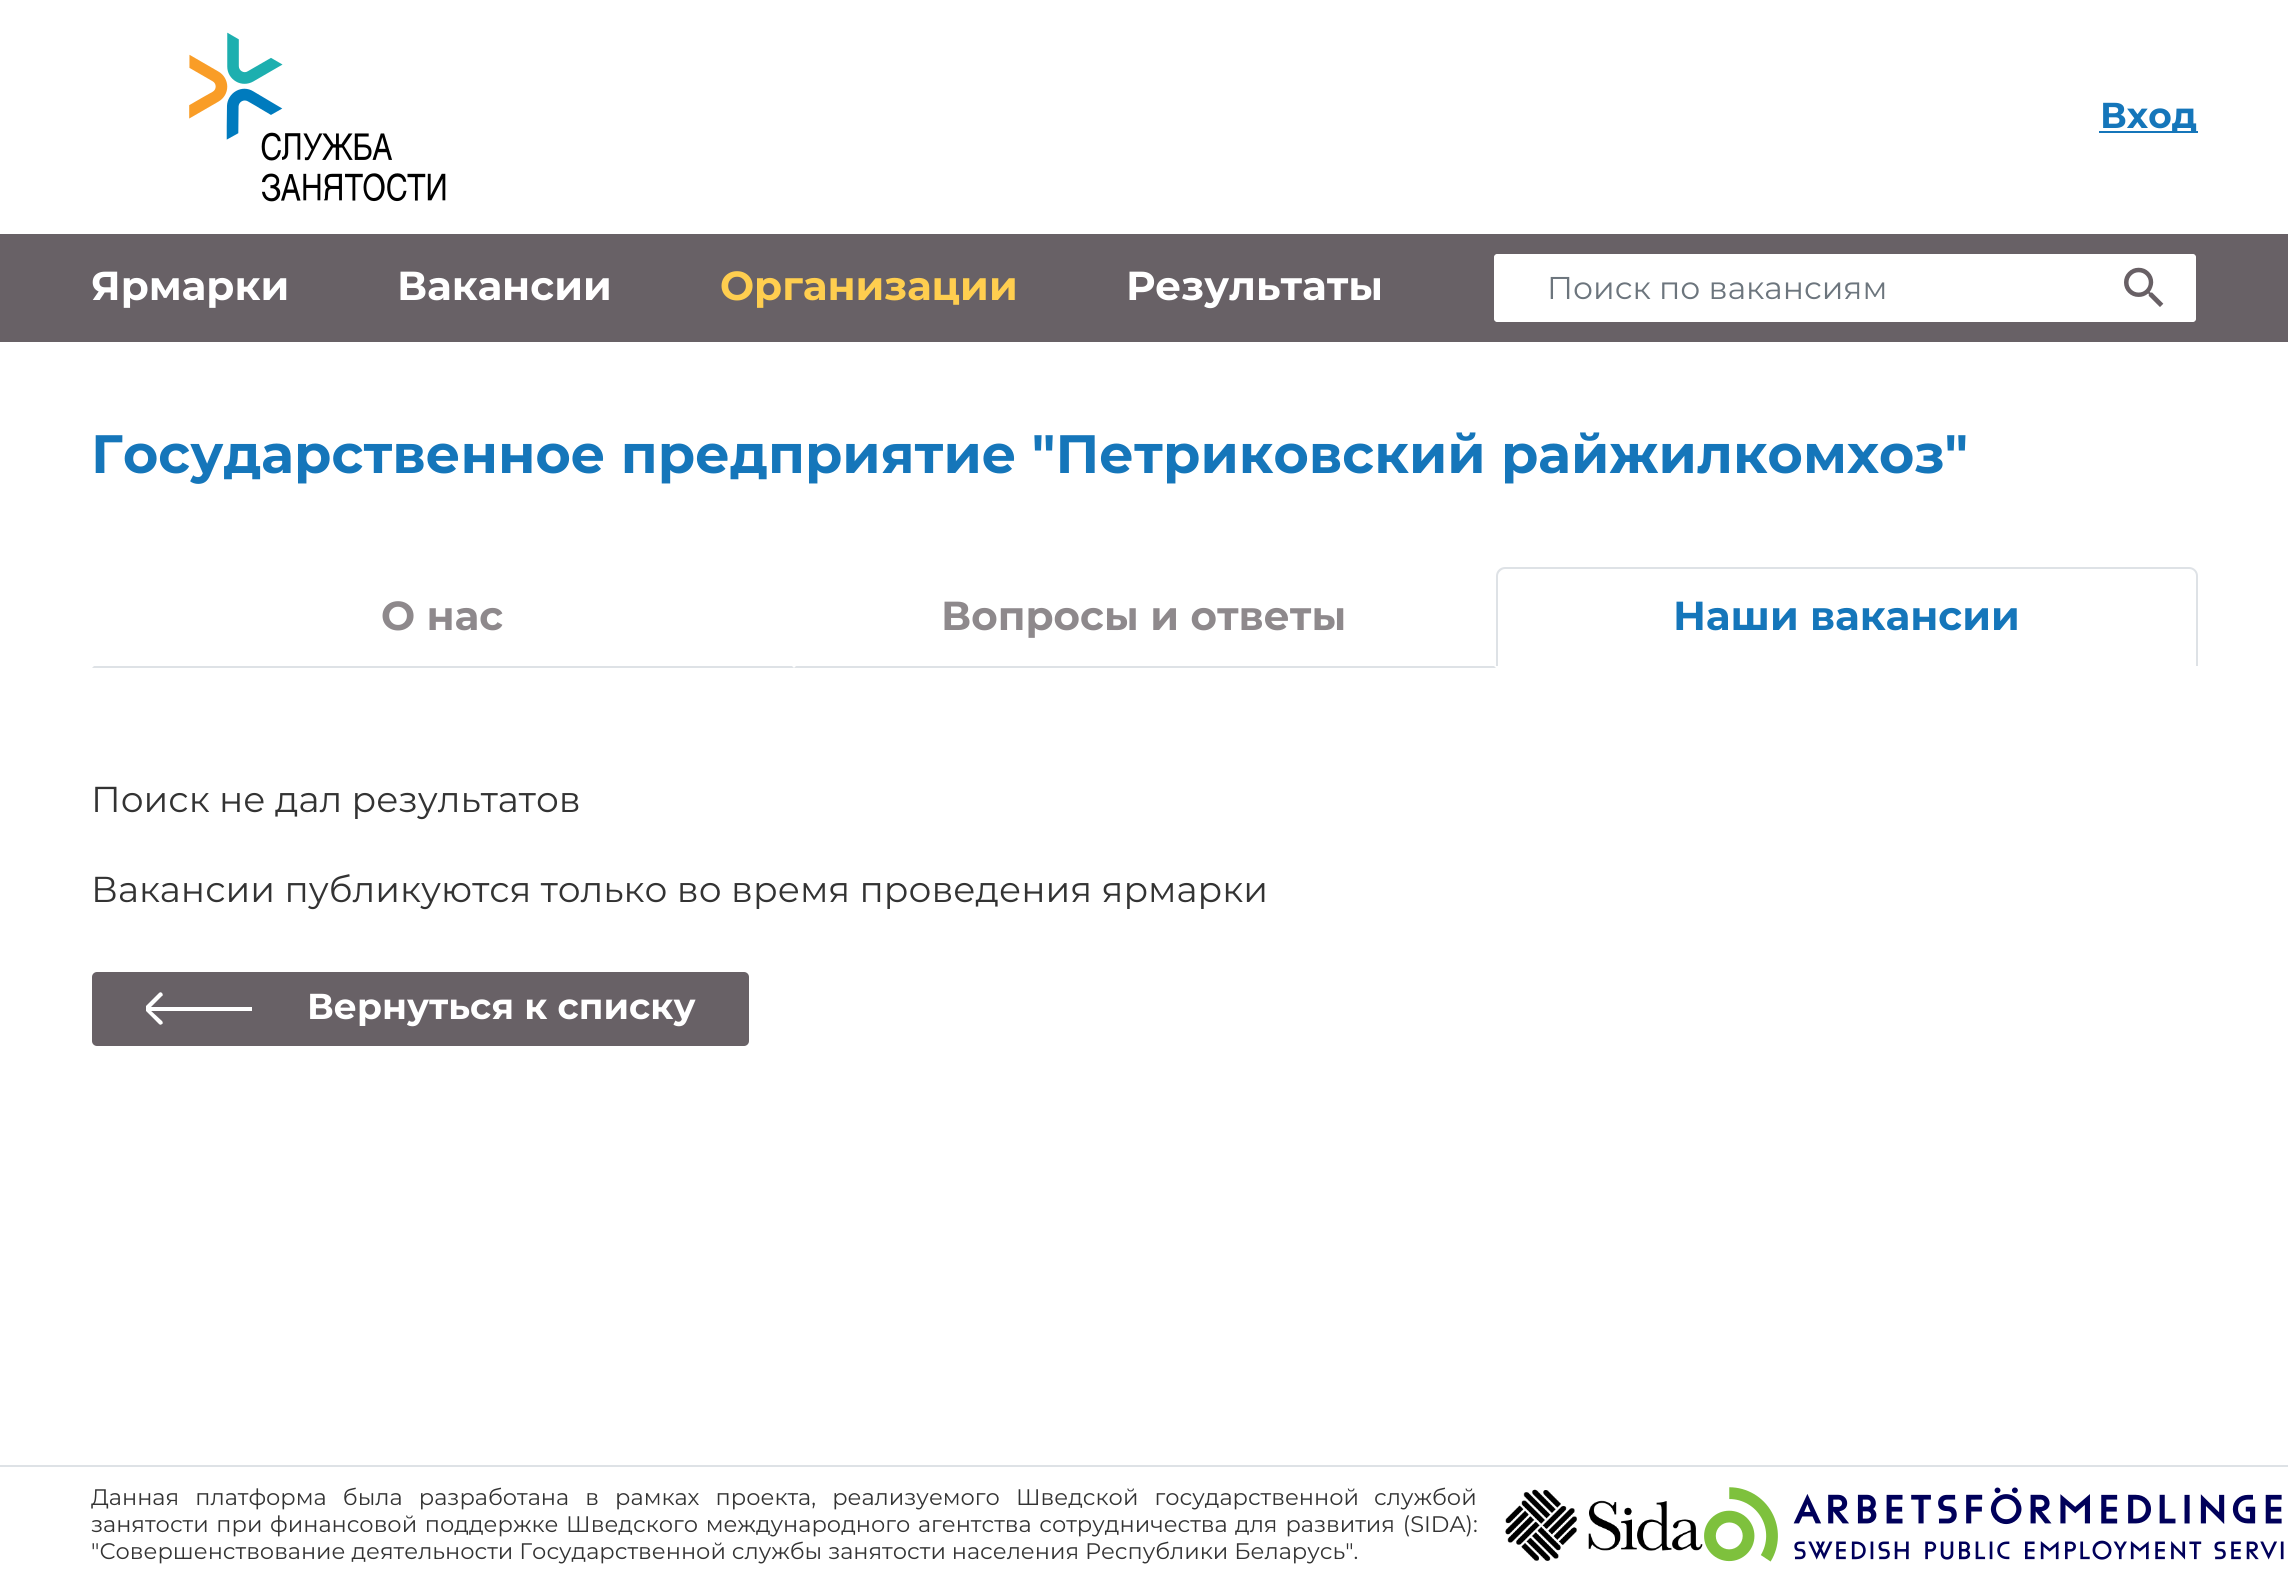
#include <cairo.h>
#include <math.h>
#include <stddef.h>

typedef struct { const char *family; double size; int italic, bold; unsigned color; } style_t;
static cairo_t *ctx;

static void ink(unsigned color) {
    cairo_set_source_rgb(ctx, (color >> 16) / 255.0, (color >> 8 & 255) / 255.0, (color & 255) / 255.0);
}

static void write(double x, double y, const char *s, const style_t *st) {
    cairo_select_font_face(ctx, st->family, st->italic ? CAIRO_FONT_SLANT_ITALIC : CAIRO_FONT_SLANT_NORMAL,
        st->bold ? CAIRO_FONT_WEIGHT_BOLD : CAIRO_FONT_WEIGHT_NORMAL);
    cairo_set_font_size(ctx, st->size);
    ink(st->color);
    cairo_move_to(ctx, x, y);
    cairo_show_text(ctx, s);
}

static void write_spaced(double x, double y, const char *s, double letter, double word) {
    cairo_move_to(ctx, x, y);
    while (*s) {
        char ch[5] = {0};
        int n = 0;
        do ch[n++] = *s++; while ((*s & 0xC0) == 0x80);
        cairo_show_text(ctx, ch);
        cairo_rel_move_to(ctx, letter + word * (*ch == ' '), 0);
    }
}

static void block(double x, double y, double w, double h, unsigned color) {
    ink(color);
    cairo_rectangle(ctx, x, y, w, h);
    cairo_fill(ctx);
}

static void round_path(double x, double y, double w, double h, double r) {
    cairo_new_sub_path(ctx);
    cairo_arc(ctx, x + w - r, y + h - r, r, 0, M_PI / 2);
    cairo_arc(ctx, x + r, y + h - r, r, M_PI / 2, M_PI);
    cairo_arc(ctx, x + r, y + r, r, M_PI, 1.5 * M_PI);
    cairo_arc(ctx, x + w - r, y + r, r, 1.5 * M_PI, 2 * M_PI);
    cairo_close_path(ctx);
}

static void paste(const char *path, double x, double y, double w, double h) {
    cairo_surface_t *image = cairo_image_surface_create_from_png(path);
    cairo_save(ctx);
    cairo_set_source_surface(ctx, image, x, y);
    cairo_rectangle(ctx, x, y, w, h);
    cairo_fill(ctx);
    cairo_restore(ctx);
    cairo_surface_destroy(image);
}

static const style_t s1 = {"Montserrat", 36, 0, 1, 0x1576ba};
static const style_t s2 = {"Montserrat", 40.5, 0, 1, 0xffffff};
static const style_t s3 = {"Montserrat", 40.5, 0, 1, 0xffce4f};
static const style_t s4 = {"Montserrat", 31.5, 0, 0, 0x6c757d};
static const style_t s5 = {"Montserrat", 54, 0, 1, 0x1576ba};
static const style_t s6 = {"Montserrat", 40.5, 0, 1, 0x8e898c};
static const style_t s7 = {"Montserrat", 40.5, 0, 1, 0x1576ba};
static const style_t s8 = {"Montserrat", 36, 0, 0, 0x333333};
static const style_t s9 = {"Montserrat", 36, 0, 1, 0xffffff};
static const style_t s10 = {"Montserrat", 22.5, 0, 0, 0x333333};

int main(void) {
    cairo_surface_t *surface = cairo_image_surface_create(CAIRO_FORMAT_RGB24, 2288, 1583);
    ctx = cairo_create(surface);
    cairo_font_options_t *options = cairo_font_options_create();
    cairo_font_options_set_hint_metrics(options, CAIRO_HINT_METRICS_OFF);
    cairo_font_options_set_hint_style(options, CAIRO_HINT_STYLE_NONE);
    cairo_set_font_options(ctx, options);
    cairo_set_miter_limit(ctx, 4);
    ink(0xffffff);
    cairo_paint(ctx);
    paste("pic1.png", 189, 32, 257, 170);
    block(2099, 131, 99, 2, 0x1576ba);
    write(2100, 128, "Вход", &s1);
    block(0, 234, 2288, 108, 0x686166);
    write(91, 300, "Ярмарки", &s2);
    write(397, 300, "Вакансии", &s2);
    write(720, 300, "Организации", &s3);
    write(1126, 300, "Результаты", &s2);
    round_path(1494, 254, 702, 68, 2);
    cairo_fill(ctx);
    round_path(1493, 253, 704, 70, 4);
    ink(0x686166);
    cairo_stroke(ctx);
    write(1547, 299, "Поиск по вакансиям", &s4);
    paste("pic2.png", 2124, 267, 40, 40);
    write(91, 473, "Государственное предприятие \"Петриковский райжилкомхоз\"", &s5);
    ink(0xdee2e6);
    cairo_new_path(ctx);
    cairo_move_to(ctx, 794, 668);
    cairo_line_to(ctx, 792, 666);
    cairo_line_to(ctx, 94, 666);
    cairo_line_to(ctx, 92, 668);
    cairo_close_path(ctx);
    cairo_fill(ctx);
    write(381, 630, "О нас", &s6);
    ink(0xdee2e6);
    cairo_new_path(ctx);
    cairo_move_to(ctx, 1496, 668);
    cairo_line_to(ctx, 1494, 666);
    cairo_line_to(ctx, 796, 666);
    cairo_line_to(ctx, 794, 668);
    cairo_close_path(ctx);
    cairo_fill(ctx);
    write(941, 630, "Вопросы и ответы", &s6);
    ink(0xdee2e6);
    cairo_set_fill_rule(ctx, CAIRO_FILL_RULE_EVEN_ODD);
    cairo_new_path(ctx);
    cairo_move_to(ctx, 1505, 567);
    cairo_line_to(ctx, 2189, 567);
    cairo_curve_to(ctx, 2194, 567, 2198, 571, 2198, 576);
    cairo_line_to(ctx, 2198, 666);
    cairo_line_to(ctx, 1496, 666);
    cairo_line_to(ctx, 1496, 576);
    cairo_curve_to(ctx, 1496, 571, 1500, 567, 1505, 567);
    cairo_close_path(ctx);
    cairo_move_to(ctx, 1505, 569);
    cairo_line_to(ctx, 2189, 569);
    cairo_curve_to(ctx, 2193, 569, 2196, 572, 2196, 576);
    cairo_line_to(ctx, 2196, 666);
    cairo_line_to(ctx, 1498, 666);
    cairo_line_to(ctx, 1498, 576);
    cairo_curve_to(ctx, 1498, 572, 1502, 569, 1505, 569);
    cairo_close_path(ctx);
    cairo_fill(ctx);
    write(1673, 630, "Наши вакансии", &s7);
    write(91, 812, "Поиск не дал результатов", &s8);
    write(91, 902, "Вакансии публикуются только во время проведения ярмарки", &s8);
    ink(0x686166);
    round_path(92, 972, 657, 74, 5);
    cairo_fill(ctx);
    cairo_save(ctx);
    cairo_set_fill_rule(ctx, CAIRO_FILL_RULE_WINDING);
    cairo_rectangle(ctx, 146, 983, 108, 54);
    cairo_clip(ctx);
    ink(0xffffff);
    cairo_new_path(ctx);
    cairo_move_to(ctx, 145, 1007);
    cairo_curve_to(ctx, 144, 1008, 144, 1010, 145, 1010);
    cairo_line_to(ctx, 159, 1024);
    cairo_curve_to(ctx, 160, 1025, 161, 1025, 162, 1024);
    cairo_curve_to(ctx, 163, 1024, 163, 1022, 162, 1021);
    cairo_line_to(ctx, 149, 1009);
    cairo_line_to(ctx, 162, 996);
    cairo_curve_to(ctx, 163, 996, 163, 994, 162, 993);
    cairo_curve_to(ctx, 161, 992, 160, 992, 159, 993);
    cairo_close_path(ctx);
    cairo_move_to(ctx, 252, 1007);
    cairo_line_to(ctx, 146, 1007);
    cairo_line_to(ctx, 146, 1011);
    cairo_line_to(ctx, 252, 1011);
    cairo_close_path(ctx);
    cairo_fill(ctx);
    cairo_restore(ctx);
    write(307, 1019, "Вернуться к списку", &s9);
    block(0, 1465, 2288, 2, 0xdee2e6);
    cairo_select_font_face(ctx, "Montserrat", CAIRO_FONT_SLANT_NORMAL, CAIRO_FONT_WEIGHT_NORMAL);
    cairo_set_font_size(ctx, 22.5);
    ink(0x333333);
    write_spaced(91, 1505, "Данная платформа была разработана в рамках проекта, реализуемого Шведской государственной", 0, 10.25);
    write(1374, 1505, "службой", &s10);
    write_spaced(91, 1532, "занятости при финансовой поддержке Шведского международного агентства сотрудничества", 0, 1.75);
    write_spaced(1235, 1532, "для развития (SIDA):", 0, 2);
    write(91, 1559, "\"Совершенствование деятельности Государственной службы занятости населения Республики Беларусь\".", &s10);
    paste("pic3.png", 1505, 1489, 198, 72);
    paste("pic4.png", 1704, 1487, 580, 75);
    cairo_surface_write_to_png(surface, "screenshot.png");
    cairo_font_options_destroy(options);
    cairo_destroy(ctx);
    cairo_surface_destroy(surface);
    return 0;
}
